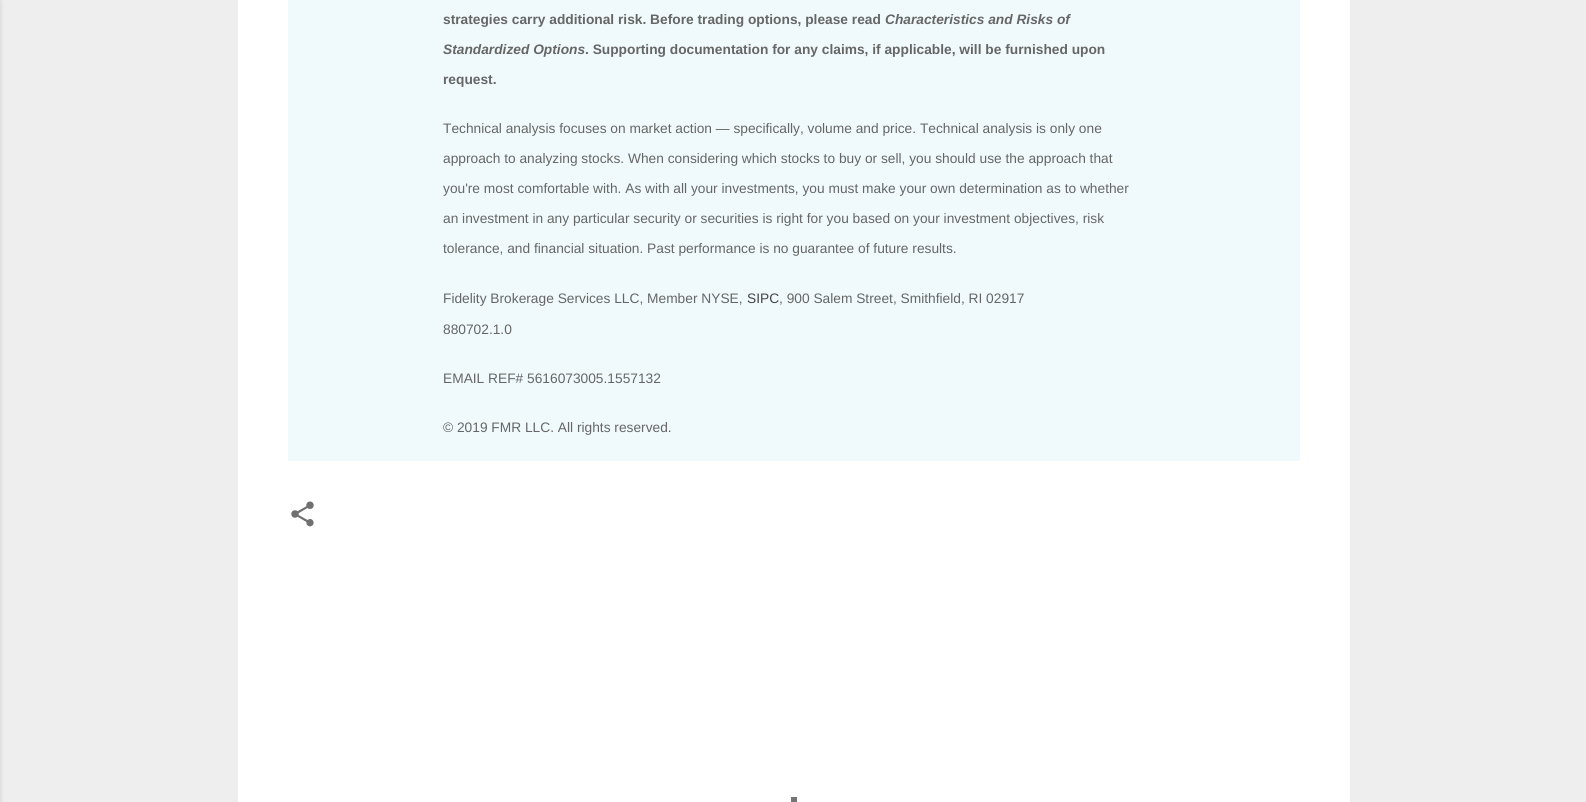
#include <cairo.h>
#include <math.h>
#include <stddef.h>

typedef struct { const char *family; double size; int italic, bold; unsigned color; } style_t;
static cairo_t *ctx;

static void ink(unsigned color) {
    cairo_set_source_rgb(ctx, (color >> 16) / 255.0, (color >> 8 & 255) / 255.0, (color & 255) / 255.0);
}

static void write(double x, double y, const char *s, const style_t *st) {
    cairo_select_font_face(ctx, st->family, st->italic ? CAIRO_FONT_SLANT_ITALIC : CAIRO_FONT_SLANT_NORMAL,
        st->bold ? CAIRO_FONT_WEIGHT_BOLD : CAIRO_FONT_WEIGHT_NORMAL);
    cairo_set_font_size(ctx, st->size);
    ink(st->color);
    cairo_move_to(ctx, x, y);
    cairo_show_text(ctx, s);
}

static void block(double x, double y, double w, double h, unsigned color) {
    ink(color);
    cairo_rectangle(ctx, x, y, w, h);
    cairo_fill(ctx);
}

static void round_path(double x, double y, double w, double h, double r) {
    cairo_new_sub_path(ctx);
    cairo_arc(ctx, x + w - r, y + h - r, r, 0, M_PI / 2);
    cairo_arc(ctx, x + r, y + h - r, r, M_PI / 2, M_PI);
    cairo_arc(ctx, x + r, y + r, r, M_PI, 1.5 * M_PI);
    cairo_arc(ctx, x + w - r, y + r, r, 1.5 * M_PI, 2 * M_PI);
    cairo_close_path(ctx);
}

static void blur_box(double x, double y, double w, double h, double r, double blur, double alpha) {
    cairo_push_group_with_content(ctx, CAIRO_CONTENT_ALPHA);
    cairo_set_operator(ctx, CAIRO_OPERATOR_SOURCE);
    for (int i = 15; i >= -15 && fmin(w, h) + blur * i / 3 > 0; i -= 2) {
        double e = blur * i / 6;
        cairo_set_source_rgba(ctx, 0, 0, 0, alpha * erfc((i - 1) / 8.5) / 2);
        round_path(x - e, y - e, w + 2 * e, h + 2 * e, fmax(0, fmin(r + e + blur * .6, fmin(w, h) / 2 + e)));
        cairo_fill(ctx);
    }
    cairo_pattern_t *soft = cairo_pop_group(ctx);
    cairo_mask(ctx, soft);
    cairo_pattern_destroy(soft);
}

static void paste(const char *path, double x, double y, double w, double h) {
    cairo_surface_t *image = cairo_image_surface_create_from_png(path);
    cairo_save(ctx);
    cairo_set_source_surface(ctx, image, x, y);
    cairo_rectangle(ctx, x, y, w, h);
    cairo_fill(ctx);
    cairo_restore(ctx);
    cairo_surface_destroy(image);
}

static const style_t s1 = {"Liberation Sans", 13.75, 0, 1, 0x666666};
static const style_t s2 = {"Liberation Sans", 13.75, 1, 1, 0x666666};
static const style_t s3 = {"Liberation Sans", 13.75, 0, 0, 0x666666};
static const style_t s4 = {"Liberation Sans", 13.75, 0, 0, 0x444444};

int main(void) {
    cairo_surface_t *surface = cairo_image_surface_create(CAIRO_FORMAT_RGB24, 1586, 802);
    ctx = cairo_create(surface);
    cairo_font_options_t *options = cairo_font_options_create();
    cairo_font_options_set_hint_metrics(options, CAIRO_HINT_METRICS_OFF);
    cairo_font_options_set_hint_style(options, CAIRO_HINT_STYLE_NONE);
    cairo_set_font_options(ctx, options);
    cairo_set_miter_limit(ctx, 4);
    ink(0xeeeeee);
    cairo_paint(ctx);
    ink(0x000000);
    blur_box(-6, 1, 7, 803, 0, 2, 0.1);
    block(238, 0, 1112, 802, 0xffffff);
    block(288, 0, 1012, 461, 0xf0fafc);
    write(443, 24, "strategies carry additional risk. Before trading options, please read", &s1);
    write(885, 24, "Characteristics and Risks of", &s2);
    write(443, 54, "Standardized Options", &s2);
    write(585, 54, ". Supporting documentation for any claims, if applicable, will be furnished upon", &s1);
    write(443, 84, "request.", &s1);
    write(443, 133, "Technical analysis focuses on market action — specifically, volume and price. Technical analysis is only one", &s3);
    write(443, 163, "approach to analyzing stocks. When considering which stocks to buy or sell, you should use the approach that", &s3);
    write(443, 193, "you're most comfortable with. As with all your investments, you must make your own determination as to whether", &s3);
    write(443, 223, "an investment in any particular security or securities is right for you based on your investment objectives, risk", &s3);
    write(443, 253, "tolerance, and financial situation. Past performance is no guarantee of future results.", &s3);
    write(443, 303, "Fidelity Brokerage Services LLC, Member NYSE,", &s3);
    write(747, 303, "SIPC", &s4);
    write(779, 303, ", 900 Salem Street, Smithfield, RI 02917", &s3);
    write(443, 334, "880702.1.0", &s3);
    write(443, 383, "EMAIL REF# 5616073005.1557132", &s3);
    write(443, 432, "© 2019 FMR LLC. All rights reserved.", &s3);
    paste("pic1.png", 291, 501, 23, 26);
    block(791, 797, 6, 5, 0x757575);
    cairo_surface_write_to_png(surface, "screenshot.png");
    cairo_font_options_destroy(options);
    cairo_destroy(ctx);
    cairo_surface_destroy(surface);
    return 0;
}
